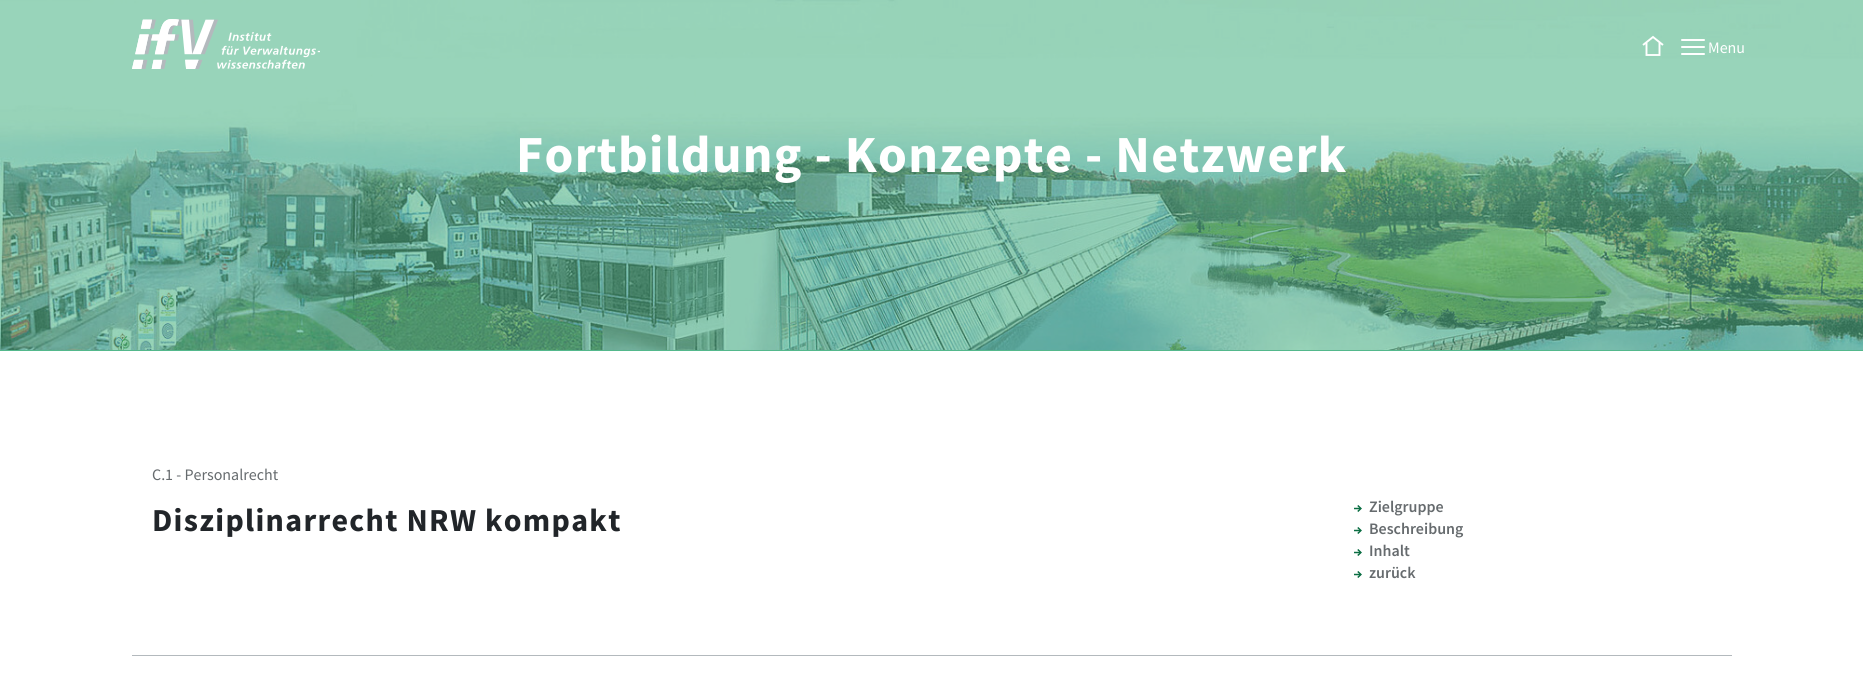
#include <cairo.h>
#include <math.h>
#include <stddef.h>

typedef struct { const char *family; double size; int italic, bold; unsigned color; } style_t;
static cairo_t *ctx;

static void ink(unsigned color) {
    cairo_set_source_rgb(ctx, (color >> 16) / 255.0, (color >> 8 & 255) / 255.0, (color & 255) / 255.0);
}

static void write(double x, double y, const char *s, const style_t *st) {
    cairo_select_font_face(ctx, st->family, st->italic ? CAIRO_FONT_SLANT_ITALIC : CAIRO_FONT_SLANT_NORMAL,
        st->bold ? CAIRO_FONT_WEIGHT_BOLD : CAIRO_FONT_WEIGHT_NORMAL);
    cairo_set_font_size(ctx, st->size);
    ink(st->color);
    cairo_move_to(ctx, x, y);
    cairo_show_text(ctx, s);
}

static void write_spaced(double x, double y, const char *s, double letter, double word) {
    cairo_move_to(ctx, x, y);
    while (*s) {
        char ch[5] = {0};
        int n = 0;
        do ch[n++] = *s++; while ((*s & 0xC0) == 0x80);
        cairo_show_text(ctx, ch);
        cairo_rel_move_to(ctx, letter + word * (*ch == ' '), 0);
    }
}

static void block(double x, double y, double w, double h, unsigned color) {
    ink(color);
    cairo_rectangle(ctx, x, y, w, h);
    cairo_fill(ctx);
}

static void round_path(double x, double y, double w, double h, double r) {
    cairo_new_sub_path(ctx);
    cairo_arc(ctx, x + w - r, y + h - r, r, 0, M_PI / 2);
    cairo_arc(ctx, x + r, y + h - r, r, M_PI / 2, M_PI);
    cairo_arc(ctx, x + r, y + r, r, M_PI, 1.5 * M_PI);
    cairo_arc(ctx, x + w - r, y + r, r, 1.5 * M_PI, 2 * M_PI);
    cairo_close_path(ctx);
}

static void paste(const char *path, double x, double y, double w, double h) {
    cairo_surface_t *image = cairo_image_surface_create_from_png(path);
    cairo_save(ctx);
    cairo_set_source_surface(ctx, image, x, y);
    cairo_rectangle(ctx, x, y, w, h);
    cairo_fill(ctx);
    cairo_restore(ctx);
    cairo_surface_destroy(image);
}

static const style_t s1 = {"Source Sans Pro", 16, 0, 0, 0xffffff};
static const style_t s2 = {"Source Sans Pro", 16, 0, 0, 0x666b6e};
static const style_t s3 = {"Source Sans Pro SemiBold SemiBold", 16, 0, 0, 0x666b6e};

int main(void) {
    cairo_surface_t *surface = cairo_image_surface_create(CAIRO_FORMAT_RGB24, 1863, 691);
    ctx = cairo_create(surface);
    cairo_font_options_t *options = cairo_font_options_create();
    cairo_font_options_set_hint_metrics(options, CAIRO_HINT_METRICS_OFF);
    cairo_font_options_set_hint_style(options, CAIRO_HINT_STYLE_NONE);
    cairo_set_font_options(ctx, options);
    cairo_set_miter_limit(ctx, 4);
    ink(0xffffff);
    cairo_paint(ctx);
    paste("pic2.png", 0, 0, 1863, 350);
    paste("pic1.png", 132, 19, 188, 50);
    cairo_new_path(ctx);
    cairo_move_to(ctx, 1659.5, 42);
    cairo_line_to(ctx, 1659.5, 55);
    cairo_line_to(ctx, 1646.5, 55);
    cairo_line_to(ctx, 1646.5, 42);
    cairo_move_to(ctx, 1663, 45);
    cairo_line_to(ctx, 1653, 37);
    cairo_line_to(ctx, 1643, 45);
    ink(0xffffff);
    cairo_set_line_width(ctx, 1.9);
    cairo_stroke(ctx);
    round_path(1681, 39, 24, 2, 1);
    cairo_fill(ctx);
    round_path(1681, 46, 24, 2, 1);
    cairo_fill(ctx);
    round_path(1681, 53, 24, 2, 1);
    cairo_fill(ctx);
    write(1708, 53, "Menu", &s1);
    cairo_select_font_face(ctx, "Source Sans Pro", CAIRO_FONT_SLANT_NORMAL, CAIRO_FONT_WEIGHT_BOLD);
    cairo_set_font_size(ctx, 52);
    write_spaced(516, 172, "Fortbildung - Konzepte - Netzwerk", 1.3, 0);
    block(0, 350, 1863, 1, 0x54b88c);
    block(132, 655, 1600, 1, 0xb3b9bd);
    write(152, 480, "C.1 - Personalrecht", &s2);
    cairo_select_font_face(ctx, "Source Sans Pro", CAIRO_FONT_SLANT_NORMAL, CAIRO_FONT_WEIGHT_BOLD);
    cairo_set_font_size(ctx, 32);
    ink(0x212529);
    write_spaced(152, 531, "Disziplinarrecht NRW kompakt", 1.3, 0);
    paste("pic3.png", 1354, 505, 8, 7);
    write(1369, 512, "Zielgruppe", &s3);
    paste("pic4.png", 1354, 527, 8, 7);
    write(1369, 534, "Beschreibung", &s3);
    paste("pic4.png", 1354, 549, 8, 7);
    write(1369, 556, "Inhalt", &s3);
    paste("pic4.png", 1354, 571, 8, 7);
    write(1369, 578, "zurück", &s3);
    cairo_surface_write_to_png(surface, "screenshot.png");
    cairo_font_options_destroy(options);
    cairo_destroy(ctx);
    cairo_surface_destroy(surface);
    return 0;
}
